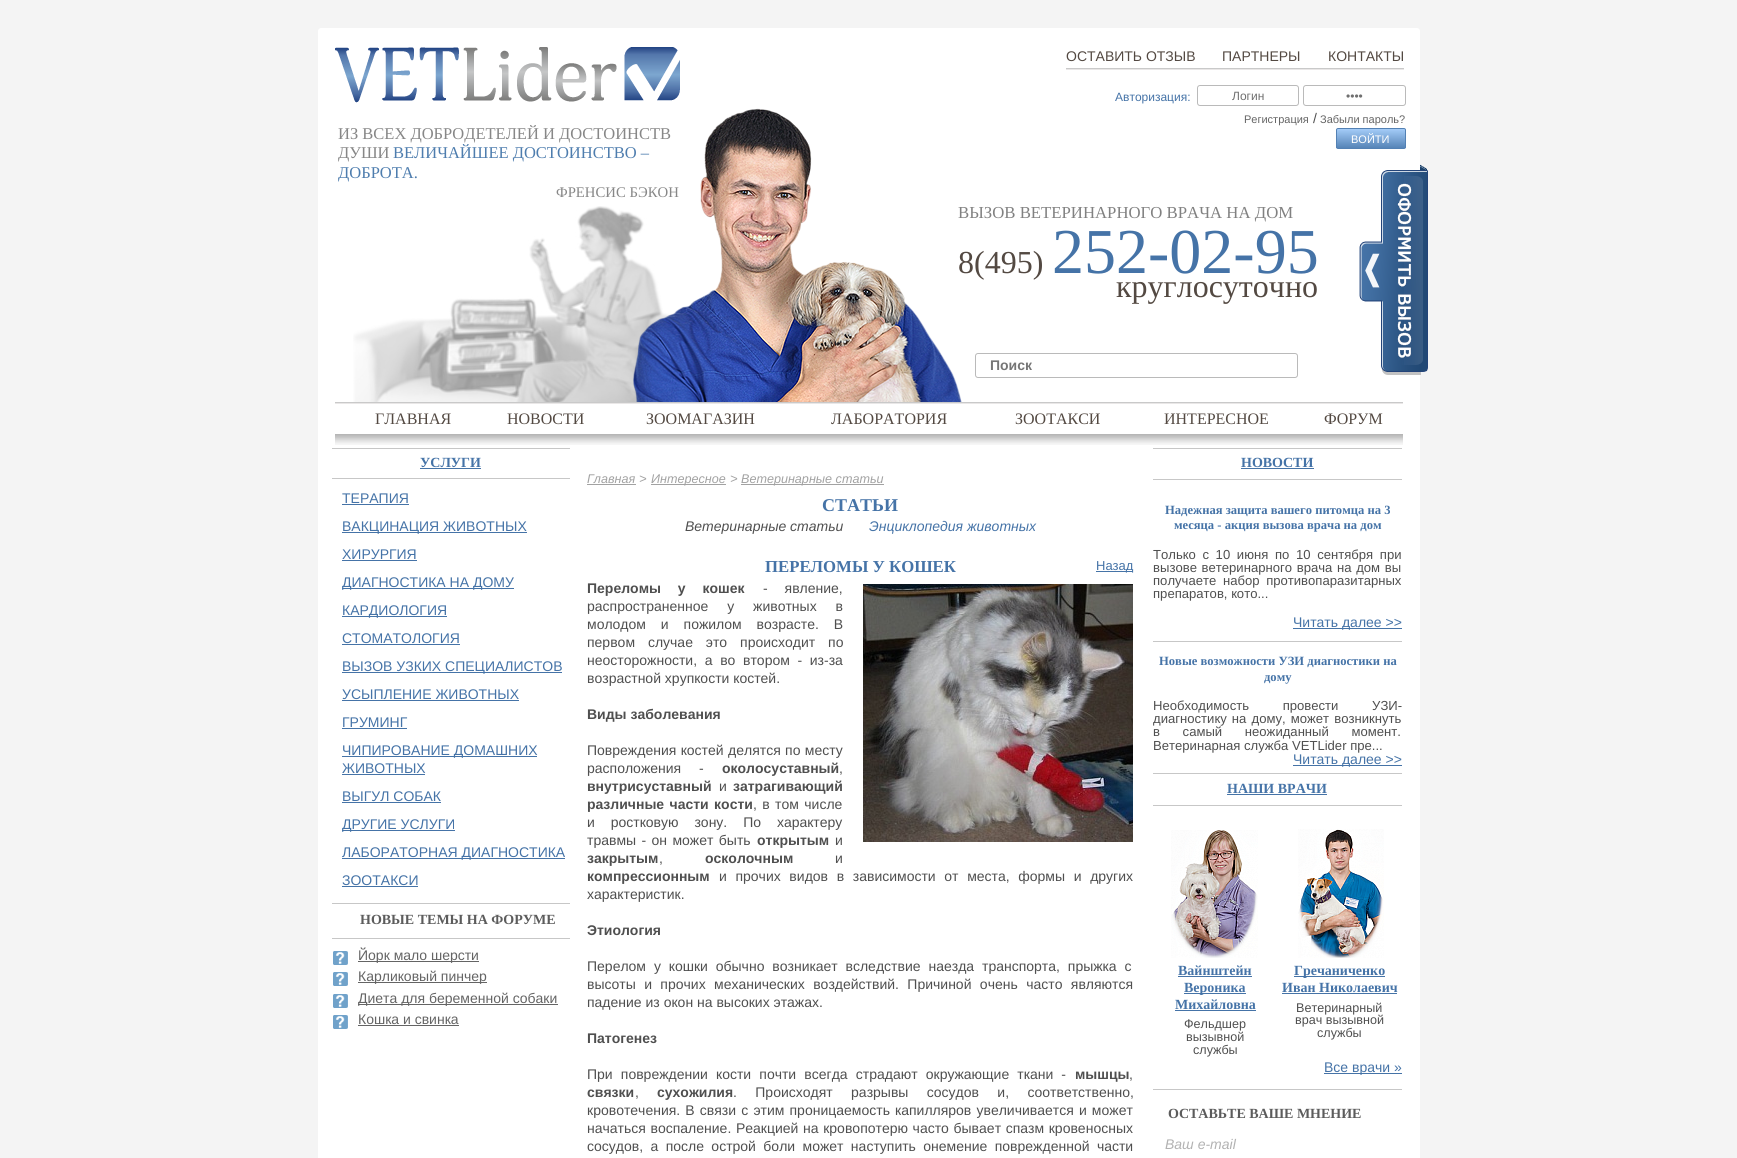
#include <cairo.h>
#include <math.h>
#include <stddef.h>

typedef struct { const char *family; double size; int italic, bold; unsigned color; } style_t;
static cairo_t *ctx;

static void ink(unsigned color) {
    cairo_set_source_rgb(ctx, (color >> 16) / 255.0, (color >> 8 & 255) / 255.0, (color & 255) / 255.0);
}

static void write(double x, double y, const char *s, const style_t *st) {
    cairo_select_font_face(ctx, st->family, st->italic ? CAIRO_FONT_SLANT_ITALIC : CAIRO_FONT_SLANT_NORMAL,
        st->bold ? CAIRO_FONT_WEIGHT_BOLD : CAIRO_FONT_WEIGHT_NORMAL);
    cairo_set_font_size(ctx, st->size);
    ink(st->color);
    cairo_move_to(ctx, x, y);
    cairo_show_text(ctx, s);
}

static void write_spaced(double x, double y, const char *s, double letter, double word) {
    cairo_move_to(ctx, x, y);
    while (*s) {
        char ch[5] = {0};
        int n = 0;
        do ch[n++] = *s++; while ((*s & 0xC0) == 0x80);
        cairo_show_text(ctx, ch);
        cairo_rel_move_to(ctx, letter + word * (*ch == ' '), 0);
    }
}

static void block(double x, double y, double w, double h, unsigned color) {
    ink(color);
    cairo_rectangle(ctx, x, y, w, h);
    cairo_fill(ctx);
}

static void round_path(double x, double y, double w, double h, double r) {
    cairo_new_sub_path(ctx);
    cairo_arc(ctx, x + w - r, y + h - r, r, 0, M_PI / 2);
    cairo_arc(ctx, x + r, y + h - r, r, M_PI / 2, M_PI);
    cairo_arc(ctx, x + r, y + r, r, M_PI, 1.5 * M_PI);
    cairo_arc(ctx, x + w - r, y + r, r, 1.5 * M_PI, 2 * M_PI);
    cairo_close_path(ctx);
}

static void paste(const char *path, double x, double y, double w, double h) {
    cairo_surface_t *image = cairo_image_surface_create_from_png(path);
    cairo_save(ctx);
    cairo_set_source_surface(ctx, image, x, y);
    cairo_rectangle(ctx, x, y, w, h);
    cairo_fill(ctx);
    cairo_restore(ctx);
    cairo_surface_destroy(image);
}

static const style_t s1 = {"Liberation Serif", 16.5, 0, 0, 0x878787};
static const style_t s2 = {"Liberation Serif", 16.5, 0, 0, 0x4e7dae};
static const style_t s3 = {"Liberation Serif", 14.75, 0, 0, 0x878787};
static const style_t s4 = {"Liberation Sans", 14, 0, 0, 0x534942};
static const style_t s5 = {"Liberation Sans", 12, 0, 0, 0x4573a7};
static const style_t s6 = {"Liberation Sans", 12, 0, 0, 0x6f6f6f};
static const style_t s7 = {"Liberation Sans", 11, 0, 0, 0x646464};
static const style_t s8 = {"Liberation Sans", 14, 0, 0, 0x4f4f4f};
static const style_t s9 = {"Liberation Sans", 11, 0, 0, 0xffffff};
static const style_t s10 = {"Liberation Serif", 16.75, 0, 0, 0x818181};
static const style_t s11 = {"Liberation Serif", 32, 0, 0, 0x534942};
static const style_t s12 = {"Liberation Serif", 64, 0, 0, 0x4573a7};
static const style_t s13 = {"Liberation Sans", 14, 0, 1, 0x767676};
static const style_t s14 = {"Liberation Serif", 16, 0, 0, 0x534942};
static const style_t s15 = {"Liberation Serif", 14, 0, 1, 0x4573a7};
static const style_t s16 = {"Liberation Sans", 14, 0, 0, 0x4573a7};
static const style_t s17 = {"Liberation Serif", 14, 0, 1, 0x5c5c5c};
static const style_t s18 = {"Liberation Sans", 14, 0, 0, 0x646464};
static const style_t s19 = {"Liberation Sans", 12.6, 1, 0, 0xa2a2a2};
static const style_t s20 = {"Liberation Sans", 13, 1, 0, 0xa2a2a2};
static const style_t s21 = {"Liberation Serif", 18, 0, 1, 0x4573a7};
static const style_t s22 = {"Liberation Sans", 14, 1, 0, 0x4f4f4f};
static const style_t s23 = {"Liberation Sans", 14, 1, 0, 0x4573a7};
static const style_t s24 = {"Liberation Serif", 16.75, 0, 1, 0x4573a7};
static const style_t s25 = {"Liberation Sans", 13, 0, 0, 0x4573a7};
static const style_t s26 = {"Liberation Sans", 14, 0, 1, 0x4f4f4f};
static const style_t s27 = {"Liberation Serif", 12.6, 0, 1, 0x4573a7};
static const style_t s28 = {"Liberation Sans", 13.1, 0, 0, 0x4f4f4f};
static const style_t s29 = {"Liberation Sans", 12.6, 0, 0, 0x4f4f4f};
static const style_t s30 = {"Liberation Sans", 14, 1, 0, 0xb2b2b2};

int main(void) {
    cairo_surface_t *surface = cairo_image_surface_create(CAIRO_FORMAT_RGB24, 1737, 1158);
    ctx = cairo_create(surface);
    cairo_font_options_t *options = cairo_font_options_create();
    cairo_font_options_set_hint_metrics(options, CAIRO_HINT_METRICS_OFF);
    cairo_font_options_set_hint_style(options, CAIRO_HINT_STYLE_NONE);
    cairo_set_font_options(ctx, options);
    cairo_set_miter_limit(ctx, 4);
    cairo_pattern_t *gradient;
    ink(0xf4f4f4);
    cairo_paint(ctx);
    block(318, 448, 1102, 710, 0xffffff);
    cairo_new_path(ctx);
    cairo_move_to(ctx, 321, 28);
    cairo_line_to(ctx, 1417, 28);
    cairo_curve_to(ctx, 1418.5, 28, 1420, 29.5, 1420, 31);
    cairo_line_to(ctx, 1420, 448);
    cairo_line_to(ctx, 318, 448);
    cairo_line_to(ctx, 318, 31);
    cairo_curve_to(ctx, 318, 29.5, 319.5, 28, 321, 28);
    cairo_close_path(ctx);
    cairo_fill(ctx);
    paste("pic1.png", 335, 47, 345, 56);
    paste("pic3.png", 353, 206, 370, 196);
    paste("pic2.png", 633, 108, 329, 294);
    write(338, 139, "ИЗ ВСЕХ ДОБРОДЕТЕЛЕЙ И ДОСТОИНСТВ", &s1);
    write(338, 158, "ДУШИ", &s1);
    write(393, 158, "ВЕЛИЧАЙШЕЕ ДОСТОИНСТВО –", &s2);
    write(338, 178, "ДОБРОТА.", &s2);
    write(556, 197, "ФРЕНСИС БЭКОН", &s3);
    write(1066, 61, "ОСТАВИТЬ ОТЗЫВ", &s4);
    write(1222, 61, "ПАРТНЕРЫ", &s4);
    block(1066, 69, 338, 1, 0xe9e7e7);
    write(1328, 61, "КОНТАКТЫ", &s4);
    block(1066, 68, 338, 1, 0xc9c9c9);
    write(1115, 101, "Авторизация:", &s5);
    round_path(1197.5, 85.5, 101, 20, 2.5);
    ink(0xbababa);
    cairo_set_line_width(ctx, 1);
    cairo_stroke(ctx);
    write(1232, 100, "Логин", &s6);
    round_path(1303.5, 85.5, 102, 20, 2.5);
    ink(0xbababa);
    cairo_stroke(ctx);
    write(1346, 100, "••••", &s6);
    write(1244, 123, "Регистрация", &s7);
    write(1313, 123, "/", &s8);
    write(1320, 123, "Забыли пароль?", &s7);
    cairo_save(ctx);
    round_path(1336, 128, 70, 21, 2);
    cairo_clip(ctx);
    gradient = cairo_pattern_create_linear(1371, 129, 1371, 148);
    cairo_pattern_add_color_stop_rgba(gradient, 0.01, 0.639, 0.796, 0.969, 1);
    cairo_pattern_add_color_stop_rgba(gradient, 1, 0.337, 0.518, 0.718, 1);
    cairo_set_source(ctx, gradient);
    cairo_pattern_destroy(gradient);
    cairo_rectangle(ctx, 1336, 129, 70, 19);
    cairo_fill(ctx);
    cairo_restore(ctx);
    round_path(1336.5, 128.5, 69, 20, 1.5);
    ink(0x5381b4);
    cairo_stroke(ctx);
    write(1351, 143, "ВОЙТИ", &s9);
    write(958, 218, "ВЫЗОВ ВЕТЕРИНАРНОГО ВРАЧА НА ДОМ", &s10);
    write(958, 273, "8(495)", &s11);
    write(1052, 273, "252-02-95", &s12);
    write(1116, 297, "круглосуточно", &s11);
    paste("pic4.png", 1359, 164, 69, 211);
    paste("pic5.png", 1365, 253, 15, 35);
    round_path(975.5, 353.5, 322, 24, 2.5);
    ink(0xbababa);
    cairo_stroke(ctx);
    write(990, 370, "Поиск", &s13);
    paste("pic6.png", 335, 434, 1068, 11);
    block(335, 402, 1068, 1, 0xc9c9c9);
    block(335, 403, 1068, 1, 0xe9e7e7);
    write(375, 424, "ГЛАВНАЯ", &s14);
    write(507, 424, "НОВОСТИ", &s14);
    write(646, 424, "ЗООМАГАЗИН", &s14);
    write(831, 424, "ЛАБОРАТОРИЯ", &s14);
    write(1015, 424, "ЗООТАКСИ", &s14);
    write(1164, 424, "ИНТЕРЕСНОЕ", &s14);
    write(1324, 424, "ФОРУМ", &s14);
    block(332, 448, 238, 1, 0xc7c7c7);
    block(332, 478, 238, 1, 0xc7c7c7);
    write(420, 467, "УСЛУГИ", &s15);
    block(420, 468, 61, 1, 0x4573a7);
    write(342, 503, "ТЕРАПИЯ", &s16);
    block(342, 504, 67, 1, 0x4573a7);
    block(342, 532, 185, 1, 0x4573a7);
    write(342, 531, "ВАКЦИНАЦИЯ ЖИВОТНЫХ", &s16);
    write(342, 559, "ХИРУРГИЯ", &s16);
    block(342, 560, 75, 1, 0x4573a7);
    block(342, 588, 172, 1, 0x4573a7);
    write(342, 587, "ДИАГНОСТИКА НА ДОМУ", &s16);
    block(342, 616, 105, 1, 0x4573a7);
    write(342, 615, "КАРДИОЛОГИЯ", &s16);
    write(342, 643, "СТОМАТОЛОГИЯ", &s16);
    block(342, 644, 118, 1, 0x4573a7);
    block(342, 672, 220, 1, 0x4573a7);
    write(342, 671, "ВЫЗОВ УЗКИХ СПЕЦИАЛИСТОВ", &s16);
    write(342, 699, "УСЫПЛЕНИЕ ЖИВОТНЫХ", &s16);
    block(342, 700, 177, 1, 0x4573a7);
    write(342, 727, "ГРУМИНГ", &s16);
    block(342, 728, 65, 1, 0x4573a7);
    block(342, 756, 195, 1, 0x4573a7);
    write(342, 755, "ЧИПИРОВАНИЕ ДОМАШНИХ", &s16);
    write(342, 773, "ЖИВОТНЫХ", &s16);
    block(342, 774, 83, 1, 0x4573a7);
    write(342, 801, "ВЫГУЛ СОБАК", &s16);
    block(342, 802, 99, 1, 0x4573a7);
    block(342, 830, 113, 1, 0x4573a7);
    write(342, 829, "ДРУГИЕ УСЛУГИ", &s16);
    block(342, 858, 223, 1, 0x4573a7);
    write(342, 857, "ЛАБОРАТОРНАЯ ДИАГНОСТИКА", &s16);
    write(342, 885, "ЗООТАКСИ", &s16);
    block(342, 886, 76, 1, 0x4573a7);
    block(332, 903, 238, 1, 0xc7c7c7);
    block(332, 938, 238, 1, 0xc7c7c7);
    write(360, 924, "НОВЫЕ ТЕМЫ НА ФОРУМЕ", &s17);
    paste("pic7.png", 333, 951, 15, 14);
    block(358, 961, 121, 1, 0x646464);
    write(358, 960, "Йорк мало шерсти", &s18);
    paste("pic7.png", 333, 972, 15, 14);
    block(358, 982, 129, 1, 0x646464);
    write(358, 981, "Карликовый пинчер", &s18);
    paste("pic7.png", 333, 994, 15, 14);
    block(358, 1004, 200, 1, 0x646464);
    write(358, 1003, "Диета для беременной собаки", &s18);
    paste("pic7.png", 333, 1015, 15, 14);
    write(358, 1024, "Кошка и свинка", &s18);
    block(358, 1025, 101, 1, 0x646464);
    write(587, 483, "Главная", &s19);
    block(587, 484, 49, 1, 0xa2a2a2);
    write(639, 483, ">", &s20);
    block(651, 484, 75, 1, 0xa2a2a2);
    write(651, 483, "Интересное", &s19);
    write(730, 483, ">", &s20);
    block(741, 484, 143, 1, 0xa2a2a2);
    write(741, 483, "Ветеринарные статьи", &s19);
    write(822, 511, "СТАТЬИ", &s21);
    write(685, 531, "Ветеринарные статьи", &s22);
    write(869, 531, "Энциклопедия животных", &s23);
    write(765, 572, "ПЕРЕЛОМЫ У КОШЕК", &s24);
    block(1096, 571, 37, 1, 0x4573a7);
    write(1096, 570, "Назад", &s25);
    cairo_select_font_face(ctx, "Liberation Sans", CAIRO_FONT_SLANT_NORMAL, CAIRO_FONT_WEIGHT_BOLD);
    cairo_set_font_size(ctx, 14);
    ink(0x4f4f4f);
    write_spaced(587, 593, "Переломы у кошек", 0, 13);
    cairo_select_font_face(ctx, "Liberation Sans", CAIRO_FONT_SLANT_NORMAL, CAIRO_FONT_WEIGHT_NORMAL);
    write_spaced(763, 593, "- явление,", 0, 13);
    write_spaced(587, 611, "распространенное у животных в", 0, 15);
    write_spaced(587, 629, "молодом и пожилом возрасте. В", 0, 11);
    write_spaced(587, 647, "первом случае это происходит по", 0, 9);
    write_spaced(587, 665, "неосторожности, а во втором - из-за", 0, 3.75);
    write(587, 683, "возрастной хрупкости костей.", &s8);
    write(587, 719, "Виды заболевания", &s26);
    cairo_select_font_face(ctx, "Liberation Sans", CAIRO_FONT_SLANT_NORMAL, CAIRO_FONT_WEIGHT_NORMAL);
    write_spaced(587, 755, "Повреждения костей делятся по месту", 0, 0.5);
    write_spaced(587, 773, "расположения -", 0, 14);
    write(722, 773, "околосуставный", &s26);
    write(839, 773, ",", &s8);
    write(587, 791, "внутрисуставный", &s26);
    write(719, 791, "и", &s8);
    write(733, 791, "затрагивающий", &s26);
    write_spaced(587, 809, "различные части кости", 0, 1.5);
    cairo_select_font_face(ctx, "Liberation Sans", CAIRO_FONT_SLANT_NORMAL, CAIRO_FONT_WEIGHT_NORMAL);
    write_spaced(753, 809, ", в том числе", 0, 1.5);
    write_spaced(587, 827, "и ростковую зону. По характеру", 0, 12);
    write_spaced(587, 845, "травмы - он может быть", 0, 1.5);
    write(757, 845, "открытым", &s26);
    write(835, 845, "и", &s8);
    write(587, 863, "закрытым", &s26);
    write(659, 863, ",", &s8);
    write(705, 863, "осколочным", &s26);
    write(835, 863, "и", &s8);
    write(587, 881, "компрессионным", &s26);
    cairo_select_font_face(ctx, "Liberation Sans", CAIRO_FONT_SLANT_NORMAL, CAIRO_FONT_WEIGHT_NORMAL);
    write_spaced(719, 881, "и прочих видов в зависимости от места, формы и других", 0, 4.75);
    write(587, 899, "характеристик.", &s8);
    write(587, 935, "Этиология", &s26);
    cairo_select_font_face(ctx, "Liberation Sans", CAIRO_FONT_SLANT_NORMAL, CAIRO_FONT_WEIGHT_NORMAL);
    write_spaced(587, 971, "Перелом у кошки обычно возникает вследствие наезда транспорта, прыжка с", 0, 4);
    write_spaced(587, 989, "высоты и прочих механических воздействий. Причиной очень часто являются", 0, 4.5);
    write(587, 1007, "падение из окон на высоких этажах.", &s8);
    write(587, 1043, "Патогенез", &s26);
    cairo_select_font_face(ctx, "Liberation Sans", CAIRO_FONT_SLANT_NORMAL, CAIRO_FONT_WEIGHT_NORMAL);
    write_spaced(587, 1079, "При повреждении кости почти всегда страдают окружающие ткани -", 0, 4.25);
    write(1075, 1079, "мышцы", &s26);
    write(1129, 1079, ",", &s8);
    write(587, 1097, "связки", &s26);
    write(635, 1097, ",", &s8);
    write(657, 1097, "сухожилия", &s26);
    cairo_select_font_face(ctx, "Liberation Sans", CAIRO_FONT_SLANT_NORMAL, CAIRO_FONT_WEIGHT_NORMAL);
    write_spaced(733, 1097, ". Происходят разрывы сосудов и, соответственно,", 0, 14.5);
    write_spaced(587, 1115, "кровотечения. В связи с этим проницаемость капилляров увеличивается и может", 0, 1.25);
    write_spaced(587, 1133, "начаться воспаление. Реакцией на кровопотерю часто бывает спазм кровеносных", 0, 0.75);
    write_spaced(587, 1151, "сосудов, а после острой боли может наступить онемение поврежденной части", 0, 3.5);
    paste("pic8.png", 863, 584, 270, 258);
    block(1153, 448, 249, 1, 0xc7c7c7);
    block(1153, 479, 249, 1, 0xc7c7c7);
    write(1241, 467, "НОВОСТИ", &s15);
    block(1241, 468, 73, 1, 0x4573a7);
    block(1153, 641, 249, 1, 0xc7c7c7);
    write(1165, 514, "Надежная защита вашего питомца на 3", &s27);
    write(1174, 529, "месяца - акция вызова врача на дом", &s27);
    cairo_select_font_face(ctx, "Liberation Sans", CAIRO_FONT_SLANT_NORMAL, CAIRO_FONT_WEIGHT_NORMAL);
    cairo_set_font_size(ctx, 13.1);
    ink(0x4f4f4f);
    write_spaced(1153, 559, "Только с 10 июня по 10 сентября при", 0, 3);
    write_spaced(1153, 572, "вызове ветеринарного врача на дом вы", 0, 1);
    write_spaced(1153, 585, "получаете набор противопаразитарных", 0, 3);
    write(1153, 598, "препаратов, кото...", &s28);
    block(1293, 628, 109, 1, 0x4573a7);
    write(1293, 627, "Читать далее >>", &s16);
    write(1159, 665, "Новые возможности УЗИ диагностики на", &s27);
    write(1264, 681, "дому", &s27);
    cairo_select_font_face(ctx, "Liberation Sans", CAIRO_FONT_SLANT_NORMAL, CAIRO_FONT_WEIGHT_NORMAL);
    cairo_set_font_size(ctx, 13.1);
    ink(0x4f4f4f);
    write_spaced(1153, 710, "Необходимость провести УЗИ-", 0, 30);
    write_spaced(1153, 723, "диагностику на дому, может возникнуть", 0, 1.5);
    write_spaced(1153, 736, "в самый неожиданный момент.", 0, 19);
    write(1153, 750, "Ветеринарная служба VETLider пре...", &s28);
    block(1293, 765, 109, 1, 0x4573a7);
    write(1293, 764, "Читать далее >>", &s16);
    block(1153, 773, 249, 1, 0xc7c7c7);
    block(1153, 805, 249, 1, 0xc7c7c7);
    write(1227, 793, "НАШИ ВРАЧИ", &s15);
    block(1227, 794, 100, 1, 0x4573a7);
    paste("pic9.png", 1171, 830, 87, 128);
    write(1178, 975, "Вайнштейн", &s15);
    block(1178, 976, 74, 1, 0x4573a7);
    block(1184, 993, 62, 1, 0x4573a7);
    write(1184, 992, "Вероника", &s15);
    write(1175, 1009, "Михайловна", &s15);
    block(1175, 1010, 81, 1, 0x4573a7);
    write(1184, 1028, "Фельдшер", &s29);
    write(1186, 1041, "вызывной", &s29);
    write(1193, 1054, "службы", &s29);
    paste("pic10.png", 1298, 829, 86, 129);
    block(1294, 976, 91, 1, 0x4573a7);
    write(1294, 975, "Гречаниченко", &s15);
    write(1282, 992, "Иван Николаевич", &s15);
    block(1282, 993, 115, 1, 0x4573a7);
    write(1296, 1012, "Ветеринарный", &s29);
    write(1295, 1024, "врач вызывной", &s29);
    write(1317, 1037, "службы", &s29);
    block(1324, 1073, 78, 1, 0x4573a7);
    write(1324, 1072, "Все врачи »", &s16);
    block(1153, 1089, 249, 1, 0xc7c7c7);
    write(1168, 1118, "ОСТАВЬТЕ ВАШЕ МНЕНИЕ", &s17);
    write(1165, 1149, "Ваш e-mail", &s30);
    cairo_surface_write_to_png(surface, "screenshot.png");
    cairo_font_options_destroy(options);
    cairo_destroy(ctx);
    cairo_surface_destroy(surface);
    return 0;
}
